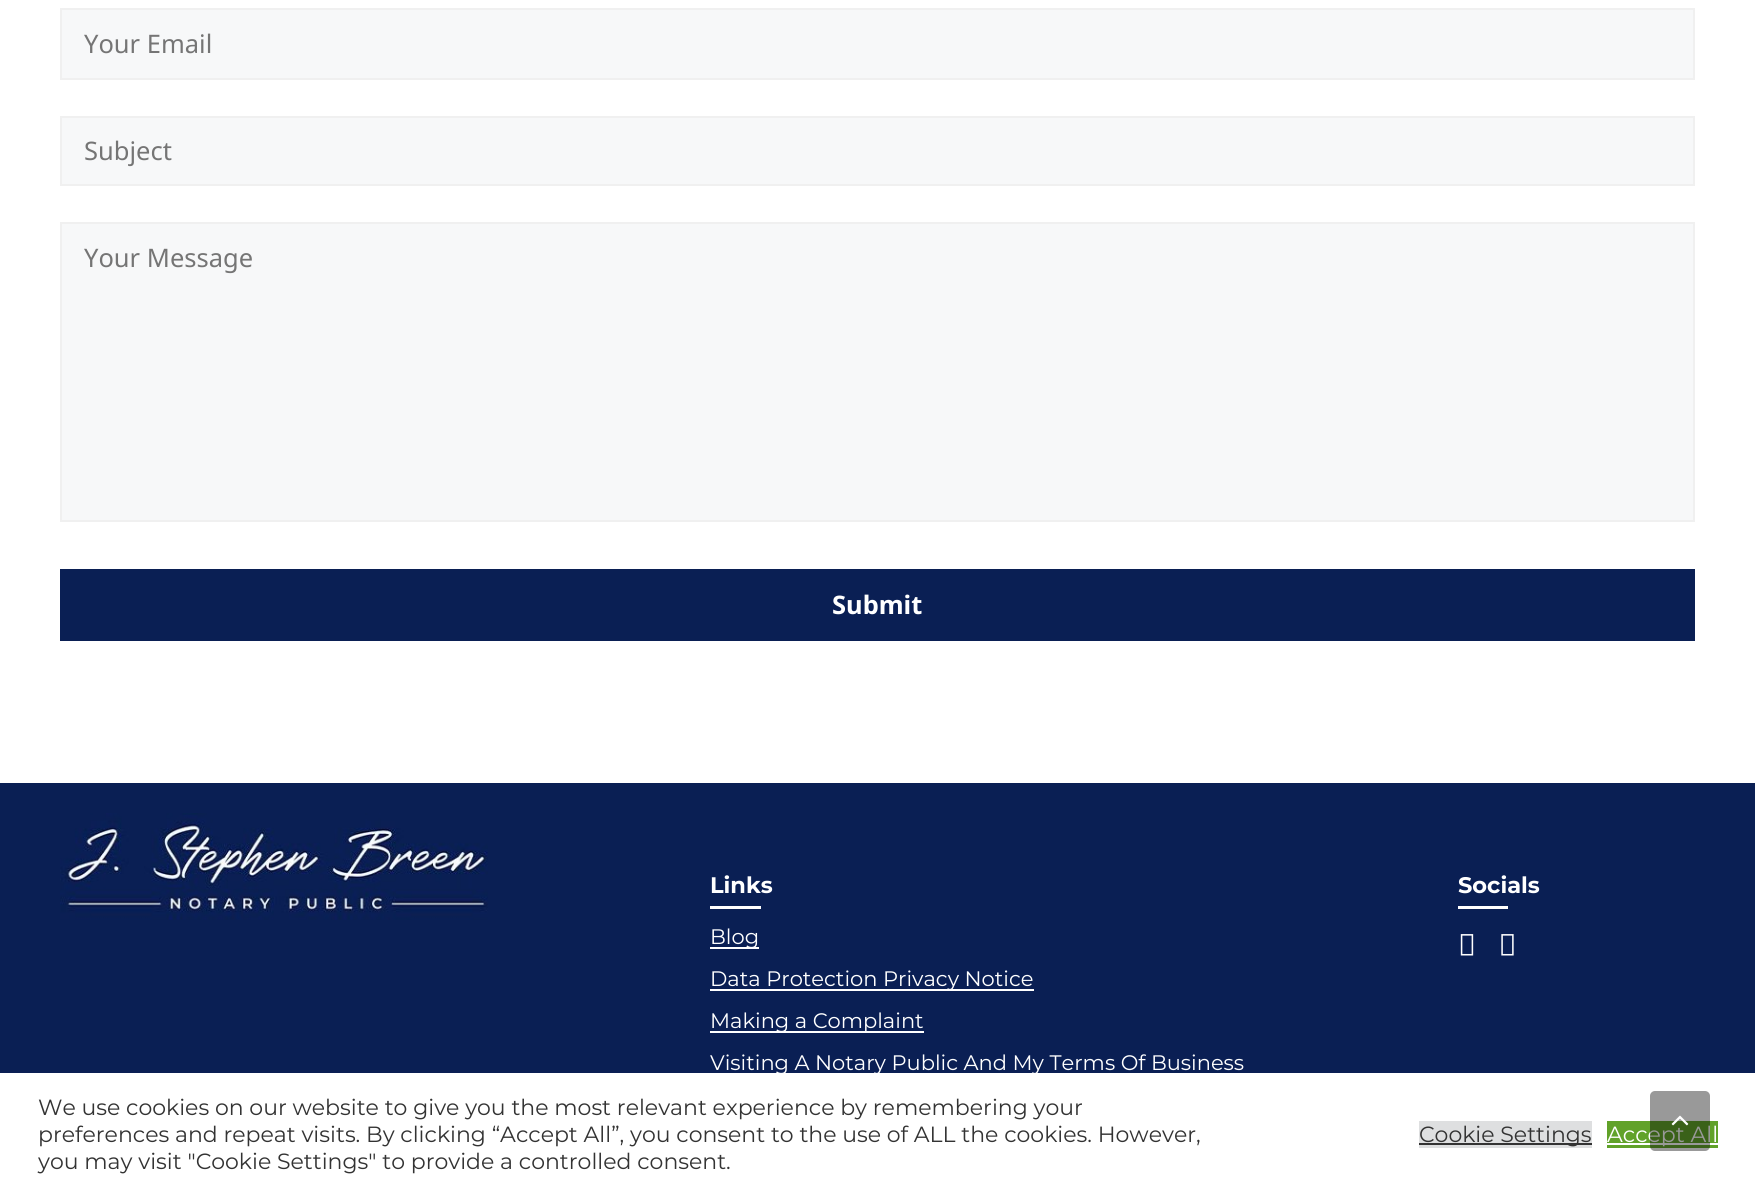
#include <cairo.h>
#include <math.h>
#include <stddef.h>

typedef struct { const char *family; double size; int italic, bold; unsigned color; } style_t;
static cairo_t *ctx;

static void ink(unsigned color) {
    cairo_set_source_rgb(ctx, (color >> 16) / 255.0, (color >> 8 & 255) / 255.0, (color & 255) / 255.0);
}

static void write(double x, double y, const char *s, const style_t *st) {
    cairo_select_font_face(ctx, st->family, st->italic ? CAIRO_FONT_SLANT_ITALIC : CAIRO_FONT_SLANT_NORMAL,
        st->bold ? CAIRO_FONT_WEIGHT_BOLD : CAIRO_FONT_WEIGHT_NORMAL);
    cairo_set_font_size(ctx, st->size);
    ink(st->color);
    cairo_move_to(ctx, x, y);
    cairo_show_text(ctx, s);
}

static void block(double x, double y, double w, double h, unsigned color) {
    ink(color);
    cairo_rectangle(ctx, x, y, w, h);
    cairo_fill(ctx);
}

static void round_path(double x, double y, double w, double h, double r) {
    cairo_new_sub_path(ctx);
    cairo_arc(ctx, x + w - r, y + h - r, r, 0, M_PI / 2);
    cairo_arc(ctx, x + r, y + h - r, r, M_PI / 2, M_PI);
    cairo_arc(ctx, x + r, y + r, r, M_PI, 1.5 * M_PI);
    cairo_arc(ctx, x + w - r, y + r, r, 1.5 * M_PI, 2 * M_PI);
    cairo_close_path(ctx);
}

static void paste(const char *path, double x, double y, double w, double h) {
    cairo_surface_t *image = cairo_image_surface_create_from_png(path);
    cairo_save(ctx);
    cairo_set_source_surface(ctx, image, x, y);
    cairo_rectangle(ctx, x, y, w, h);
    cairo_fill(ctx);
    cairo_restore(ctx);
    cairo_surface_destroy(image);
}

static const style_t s1 = {"Noto Sans", 25.5, 0, 0, 0x757575};
static const style_t s2 = {"Noto Sans", 25.5, 0, 1, 0xffffff};
static const style_t s3 = {"Montserrat", 22.5, 0, 1, 0xffffff};
static const style_t s4 = {"Montserrat", 21, 0, 0, 0xffffff};
static const style_t s5 = {"Montserrat", 22, 0, 0, 0xffffff};
static const style_t s6 = {"Montserrat", 22, 0, 0, 0x333333};

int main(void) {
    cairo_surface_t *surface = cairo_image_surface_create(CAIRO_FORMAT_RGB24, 1755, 1195);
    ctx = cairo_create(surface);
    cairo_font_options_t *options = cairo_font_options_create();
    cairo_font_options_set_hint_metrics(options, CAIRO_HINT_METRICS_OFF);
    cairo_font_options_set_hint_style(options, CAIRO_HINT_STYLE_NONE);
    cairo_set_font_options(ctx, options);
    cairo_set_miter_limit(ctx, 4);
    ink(0xffffff);
    cairo_paint(ctx);
    ink(0xf7f8f9);
    cairo_rectangle(ctx, 61, 9, 1633, 70);
    cairo_fill_preserve(ctx);
    ink(0xf0f0f0);
    cairo_stroke(ctx);
    write(84, 53, "Your Email", &s1);
    ink(0xf7f8f9);
    cairo_rectangle(ctx, 61, 117, 1633, 68);
    cairo_fill_preserve(ctx);
    ink(0xf0f0f0);
    cairo_stroke(ctx);
    write(84, 160, "Subject", &s1);
    ink(0xf7f8f9);
    cairo_rectangle(ctx, 61, 223, 1633, 298);
    cairo_fill_preserve(ctx);
    ink(0xf0f0f0);
    cairo_stroke(ctx);
    write(84, 267, "Your Message", &s1);
    block(60, 569, 1635, 72, 0x0a1f54);
    write(832, 614, "Submit", &s2);
    block(0, 783, 1755, 290, 0x0a1f54);
    paste("pic1.png", 60, 813, 428, 107);
    write(710, 893, "Links", &s3);
    block(710, 906, 51, 3, 0xffffff);
    block(710, 947, 49, 2, 0xffffff);
    write(710, 944, "Blog", &s4);
    block(710, 989, 324, 2, 0xffffff);
    write(710, 986, "Data Protection Privacy Notice", &s4);
    block(710, 1031, 214, 2, 0xffffff);
    write(710, 1028, "Making a Complaint", &s4);
    write(710, 1070, "Visiting A Notary Public And My Terms Of Business", &s4);
    write(1458, 893, "Socials", &s3);
    block(1458, 906, 50, 3, 0xffffff);
    paste("pic2.png", 1460, 934, 14, 22);
    paste("pic3.png", 1501, 934, 13, 22);
    block(1607, 1121, 111, 27, 0x61a229);
    block(1607, 1143, 111, 2, 0xffffff);
    write(1607, 1142, "Accept All", &s5);
    cairo_set_source_rgba(ctx, 0, 0, 0, 0.4);
    round_path(1650, 1091, 60, 60, 5);
    cairo_fill(ctx);
    paste("pic4.png", 1671, 1115, 18, 11);
    write(38, 1115, "We use cookies on our website to give you the most relevant experience by remembering your", &s6);
    write(38, 1142, "preferences and repeat visits. By clicking “Accept All”, you consent to the use of ALL the cookies. However,", &s6);
    write(38, 1169, "you may visit \"Cookie Settings\" to provide a controlled consent.", &s6);
    block(1419, 1121, 173, 27, 0xdedfe0);
    block(1419, 1143, 173, 2, 0x333333);
    write(1419, 1142, "Cookie Settings", &s6);
    cairo_surface_write_to_png(surface, "screenshot.png");
    cairo_font_options_destroy(options);
    cairo_destroy(ctx);
    cairo_surface_destroy(surface);
    return 0;
}
